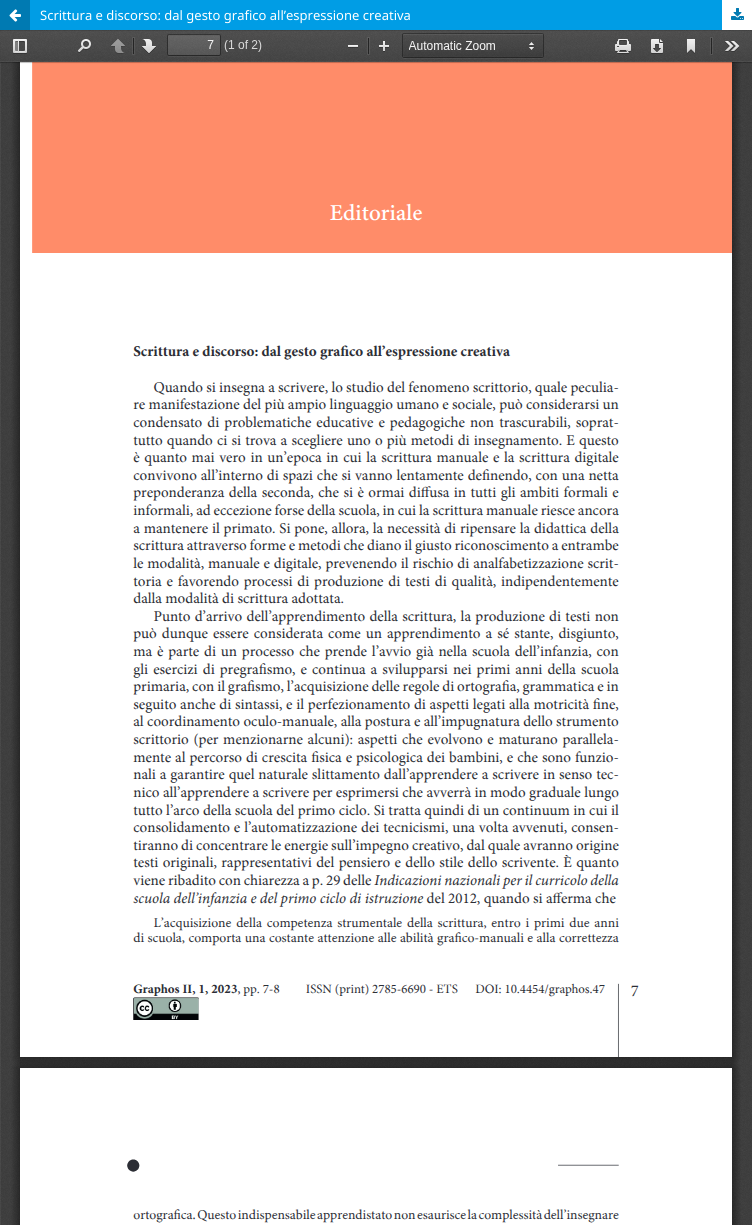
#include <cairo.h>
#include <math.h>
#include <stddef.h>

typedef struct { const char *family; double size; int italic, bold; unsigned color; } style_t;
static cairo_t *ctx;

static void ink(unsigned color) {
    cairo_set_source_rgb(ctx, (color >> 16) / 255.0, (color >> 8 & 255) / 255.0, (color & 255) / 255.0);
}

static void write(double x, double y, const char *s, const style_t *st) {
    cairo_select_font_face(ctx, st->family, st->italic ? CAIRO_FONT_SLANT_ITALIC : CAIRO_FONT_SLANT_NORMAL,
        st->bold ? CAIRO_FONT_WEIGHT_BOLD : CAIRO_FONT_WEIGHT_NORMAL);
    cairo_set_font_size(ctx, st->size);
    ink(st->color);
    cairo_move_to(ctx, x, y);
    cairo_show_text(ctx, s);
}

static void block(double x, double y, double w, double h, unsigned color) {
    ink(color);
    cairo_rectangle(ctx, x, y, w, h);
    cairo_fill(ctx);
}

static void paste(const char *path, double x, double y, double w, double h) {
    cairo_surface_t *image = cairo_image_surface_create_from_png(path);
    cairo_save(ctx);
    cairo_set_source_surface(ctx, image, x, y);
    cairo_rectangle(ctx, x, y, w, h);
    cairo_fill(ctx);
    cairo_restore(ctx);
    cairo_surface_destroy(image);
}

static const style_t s1 = {"Noto Sans", 13, 0, 0, 0xffffff};

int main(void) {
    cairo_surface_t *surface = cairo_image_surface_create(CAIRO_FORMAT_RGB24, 752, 1225);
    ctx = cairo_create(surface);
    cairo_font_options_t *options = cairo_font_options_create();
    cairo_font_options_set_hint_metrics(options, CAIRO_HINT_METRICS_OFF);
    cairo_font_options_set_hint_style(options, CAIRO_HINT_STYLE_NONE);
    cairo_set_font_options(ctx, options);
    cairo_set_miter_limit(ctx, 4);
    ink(0xffffff);
    cairo_paint(ctx);
    block(30, 0, 692, 30, 0x009de5);
    block(0, 0, 30, 30, 0x007ab2);
    paste("pic1.png", 9, 9, 12, 13);
    write(40, 20, "Scrittura e discorso: dal gesto grafico all’espressione creativa", &s1);
    paste("pic2.png", 731, 8, 13, 12);
    paste("pic3.png", 0, 30, 752, 1195);
    cairo_surface_write_to_png(surface, "screenshot.png");
    cairo_font_options_destroy(options);
    cairo_destroy(ctx);
    cairo_surface_destroy(surface);
    return 0;
}
